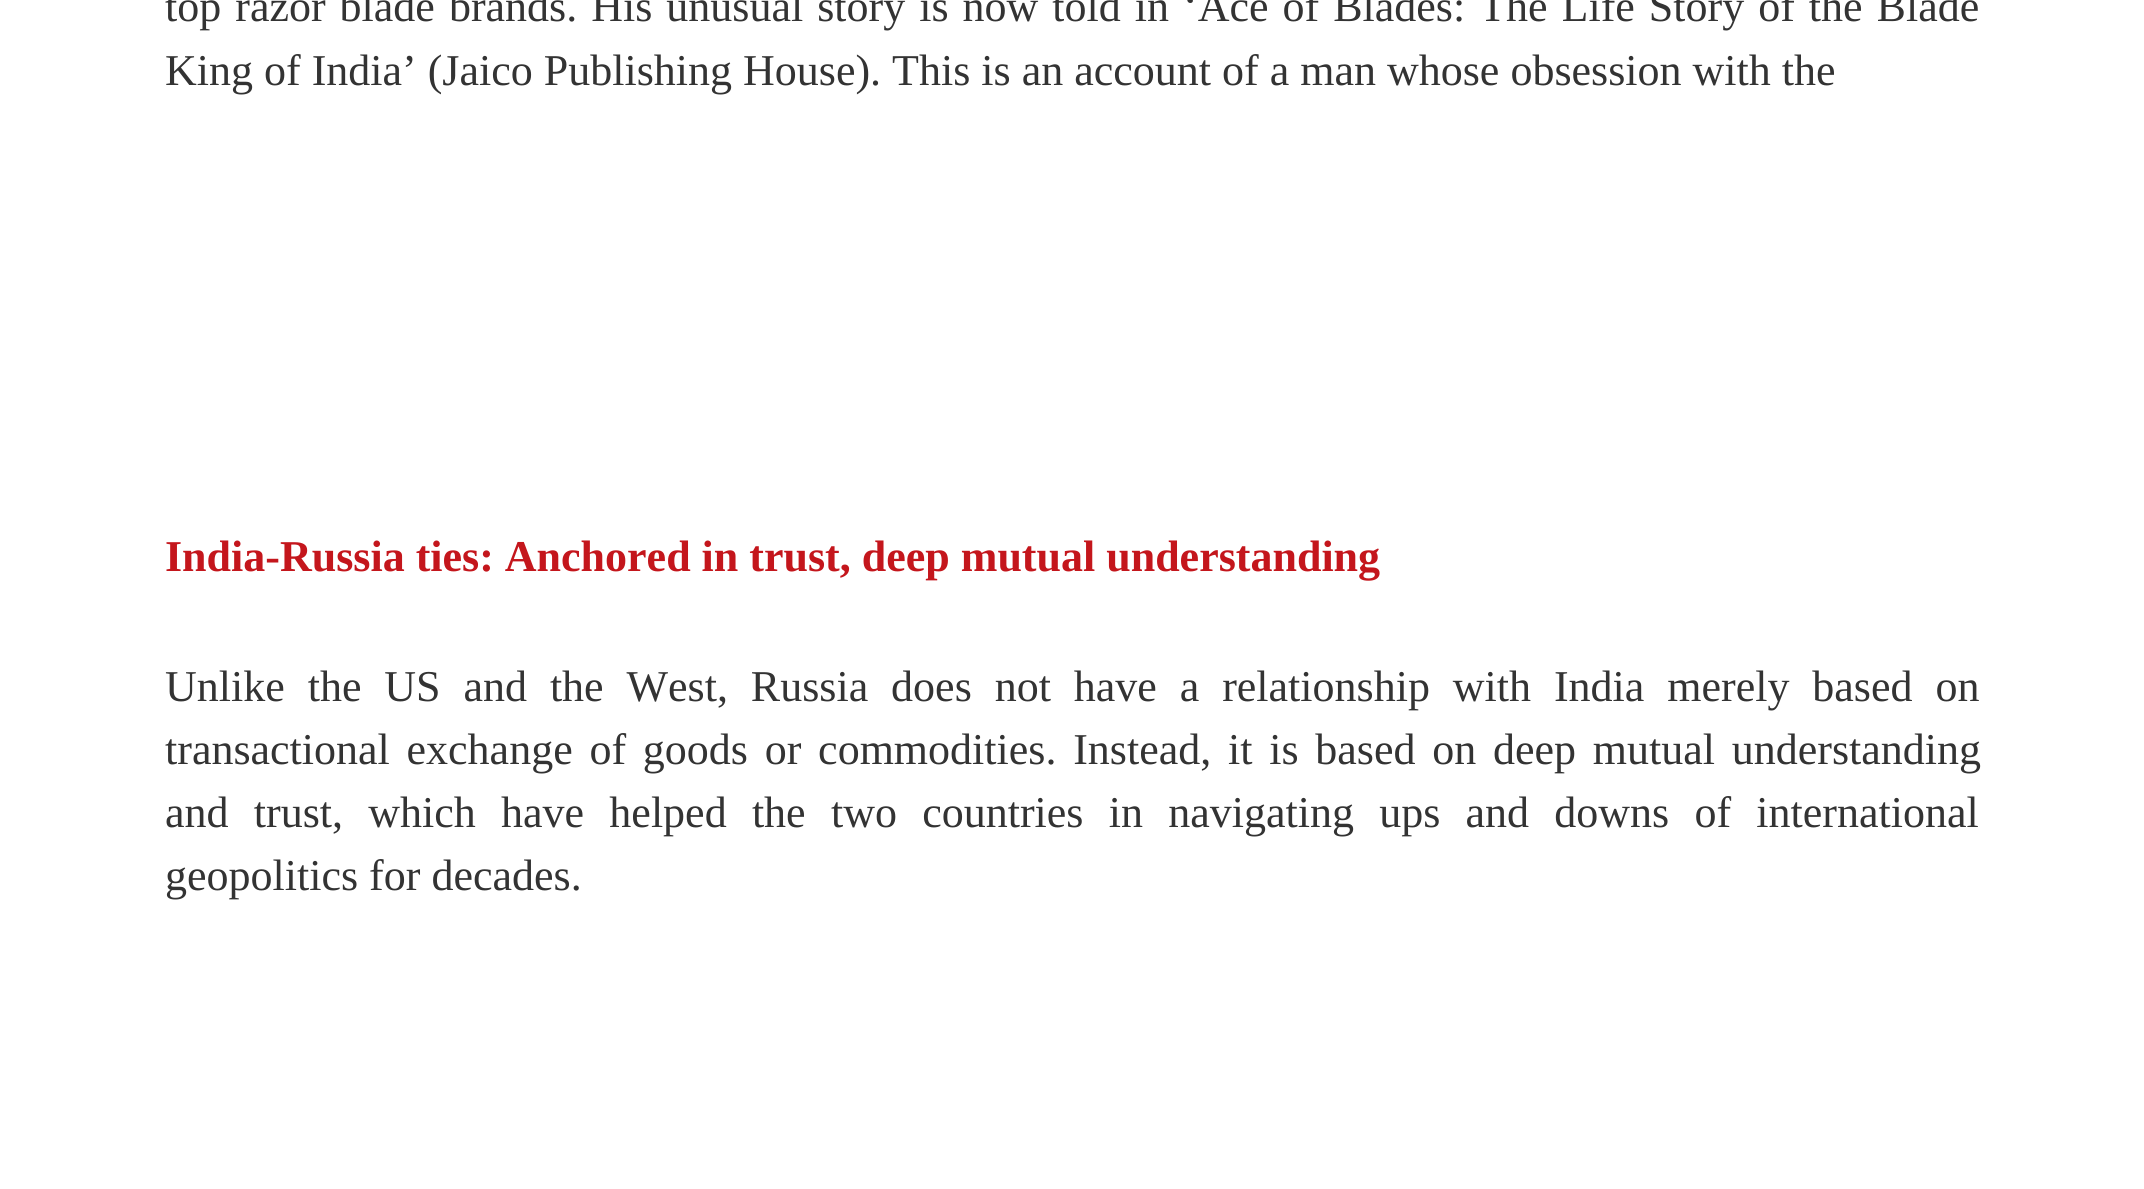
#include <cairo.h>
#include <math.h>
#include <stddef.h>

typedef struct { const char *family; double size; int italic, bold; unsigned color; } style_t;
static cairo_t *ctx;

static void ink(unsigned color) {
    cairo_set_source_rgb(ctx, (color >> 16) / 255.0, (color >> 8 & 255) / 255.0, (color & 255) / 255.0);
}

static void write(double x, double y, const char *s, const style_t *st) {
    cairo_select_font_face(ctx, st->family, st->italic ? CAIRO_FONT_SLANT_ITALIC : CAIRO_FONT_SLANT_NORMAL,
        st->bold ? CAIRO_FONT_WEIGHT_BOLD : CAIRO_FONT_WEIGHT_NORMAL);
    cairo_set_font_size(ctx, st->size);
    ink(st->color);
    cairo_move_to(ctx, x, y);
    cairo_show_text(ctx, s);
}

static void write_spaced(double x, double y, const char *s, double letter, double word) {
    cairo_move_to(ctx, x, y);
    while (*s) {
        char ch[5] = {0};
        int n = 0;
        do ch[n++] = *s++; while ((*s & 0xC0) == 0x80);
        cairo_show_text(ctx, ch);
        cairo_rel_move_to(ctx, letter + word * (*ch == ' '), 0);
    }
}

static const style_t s1 = {"Liberation Serif", 44, 0, 0, 0x333333};
static const style_t s2 = {"Liberation Serif", 44, 0, 1, 0xc4161c};

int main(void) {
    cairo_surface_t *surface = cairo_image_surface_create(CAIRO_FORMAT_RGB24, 2144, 1189);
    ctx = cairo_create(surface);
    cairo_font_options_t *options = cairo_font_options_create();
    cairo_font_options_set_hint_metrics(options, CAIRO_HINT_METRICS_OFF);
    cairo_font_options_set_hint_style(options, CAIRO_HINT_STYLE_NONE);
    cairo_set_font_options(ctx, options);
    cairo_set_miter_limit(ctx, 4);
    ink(0xffffff);
    cairo_paint(ctx);
    cairo_select_font_face(ctx, "Liberation Serif", CAIRO_FONT_SLANT_NORMAL, CAIRO_FONT_WEIGHT_NORMAL);
    cairo_set_font_size(ctx, 44);
    ink(0x333333);
    write_spaced(165, 21, "top razor blade brands. His unusual story is now told in ‘Ace of Blades: The Life Story of the Blade", 0, 3);
    write(165, 85, "King of India’ (Jaico Publishing House). This is an account of a man whose obsession with the", &s1);
    write(165, 571, "India-Russia ties: Anchored in trust, deep mutual understanding", &s2);
    cairo_select_font_face(ctx, "Liberation Serif", CAIRO_FONT_SLANT_NORMAL, CAIRO_FONT_WEIGHT_NORMAL);
    ink(0x333333);
    write_spaced(165, 701, "Unlike the US and the West, Russia does not have a relationship with India merely based on", 0, 11.9);
    write_spaced(165, 764, "transactional exchange of goods or commodities. Instead, it is based on deep mutual understanding", 0, 5.75);
    write_spaced(165, 827, "and trust, which have helped the two countries in navigating ups and downs of international", 0, 14.25);
    write(165, 890, "geopolitics for decades.", &s1);
    cairo_surface_write_to_png(surface, "screenshot.png");
    cairo_font_options_destroy(options);
    cairo_destroy(ctx);
    cairo_surface_destroy(surface);
    return 0;
}
